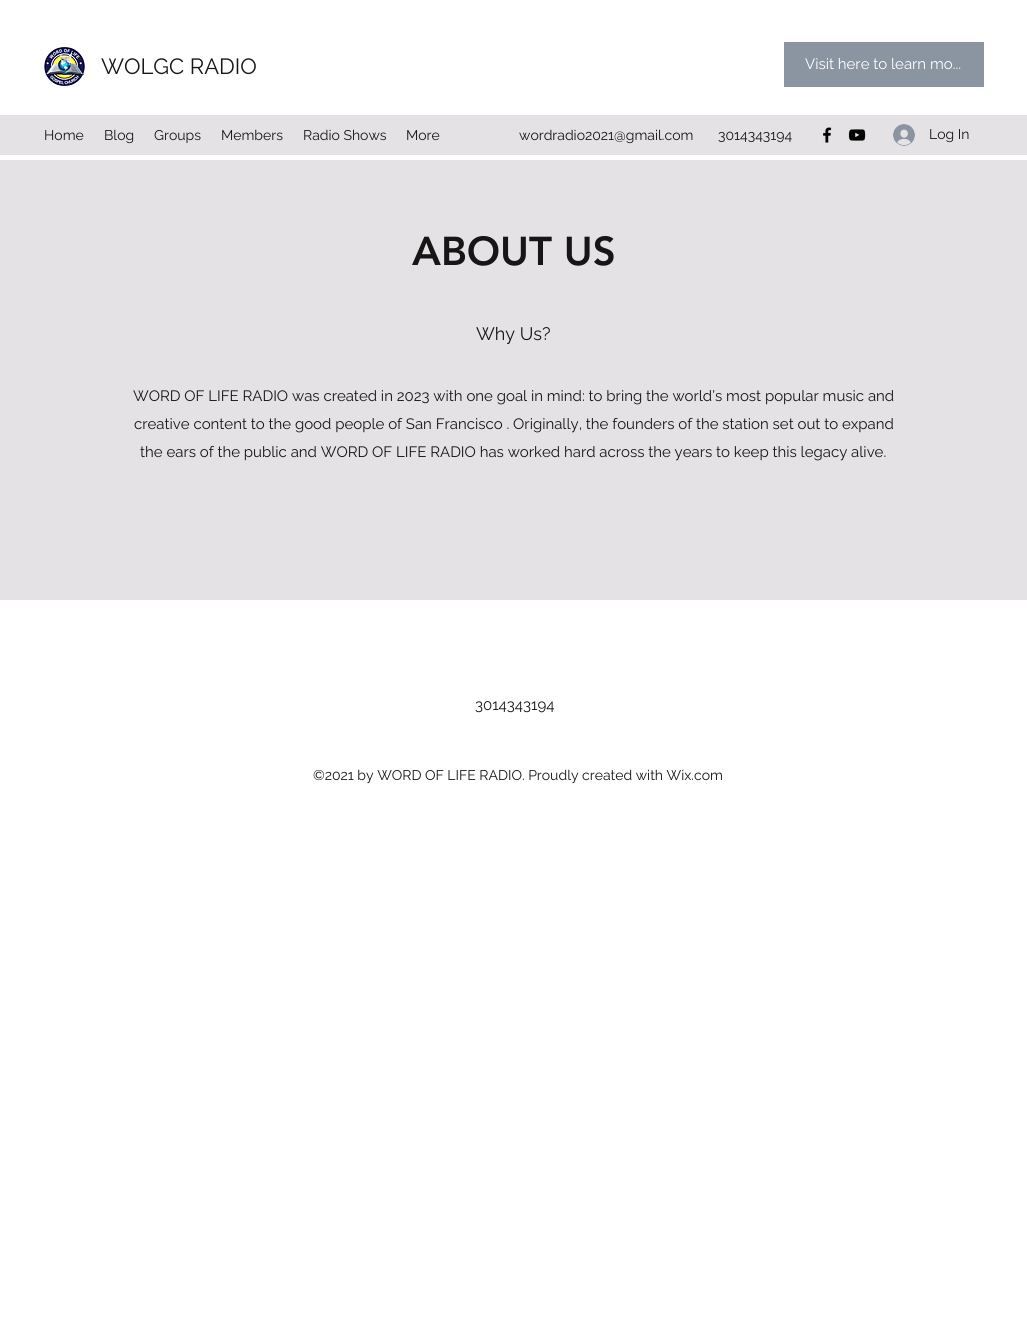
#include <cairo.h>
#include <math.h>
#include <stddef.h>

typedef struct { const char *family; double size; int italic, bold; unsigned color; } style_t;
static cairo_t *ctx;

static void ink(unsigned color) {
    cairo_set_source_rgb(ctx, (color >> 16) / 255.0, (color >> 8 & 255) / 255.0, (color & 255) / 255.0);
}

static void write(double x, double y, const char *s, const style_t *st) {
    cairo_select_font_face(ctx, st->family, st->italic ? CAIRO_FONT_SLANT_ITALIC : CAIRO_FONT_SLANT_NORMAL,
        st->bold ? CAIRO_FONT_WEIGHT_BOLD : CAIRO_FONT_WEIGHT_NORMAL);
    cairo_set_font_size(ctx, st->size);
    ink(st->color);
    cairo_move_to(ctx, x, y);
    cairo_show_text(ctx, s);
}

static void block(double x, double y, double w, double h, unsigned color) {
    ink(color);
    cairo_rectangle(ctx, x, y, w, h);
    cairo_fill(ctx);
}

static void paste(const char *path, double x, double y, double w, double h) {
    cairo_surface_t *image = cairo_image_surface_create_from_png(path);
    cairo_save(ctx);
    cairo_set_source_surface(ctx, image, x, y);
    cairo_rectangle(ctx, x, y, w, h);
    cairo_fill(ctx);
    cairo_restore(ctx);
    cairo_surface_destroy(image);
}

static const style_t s1 = {"Raleway", 22, 0, 0, 0x181516};
static const style_t s2 = {"Raleway", 15, 0, 0, 0xffffff};
static const style_t s3 = {"Raleway", 14, 0, 0, 0x181516};
static const style_t s4 = {"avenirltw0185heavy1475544 Black", 40, 0, 0, 0x181516};
static const style_t s5 = {"Raleway", 18, 0, 0, 0x181516};
static const style_t s6 = {"Raleway", 15, 0, 0, 0x181516};

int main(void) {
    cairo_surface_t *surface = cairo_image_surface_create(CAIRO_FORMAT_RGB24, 1027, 1340);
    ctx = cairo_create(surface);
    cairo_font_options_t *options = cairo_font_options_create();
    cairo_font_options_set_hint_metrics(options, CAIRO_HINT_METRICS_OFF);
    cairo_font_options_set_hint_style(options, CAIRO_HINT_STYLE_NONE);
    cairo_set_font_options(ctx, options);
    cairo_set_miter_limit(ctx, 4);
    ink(0xffffff);
    cairo_paint(ctx);
    paste("pic1.png", 44, 47, 41, 39);
    write(101, 74, "WOLGC RADIO", &s1);
    block(784, 42, 200, 45, 0x8a95a1);
    write(805, 69, "Visit here to learn mo...", &s2);
    block(0, 115, 1027, 40, 0xe4e2e4);
    write(44, 140, "Home", &s3);
    write(104, 140, "Blog", &s3);
    write(154, 140, "Groups", &s3);
    write(221, 140, "Members", &s3);
    write(303, 140, "Radio Shows", &s3);
    write(406, 140, "More", &s3);
    write(519, 140, "wordradio2021@gmail.com", &s3);
    write(718, 140, "3014343194", &s3);
    paste("pic2.png", 823, 127, 9, 16);
    paste("pic3.png", 848, 129, 18, 12);
    paste("pic4.png", 893, 124, 22, 22);
    write(929, 139, "Log In", &s3);
    block(0, 160, 1027, 440, 0xe4e2e4);
    write(412, 265, "ABOUT US", &s4);
    write(476, 340, "Why Us?", &s5);
    write(133, 401, "WORD OF LIFE RADIO was created in 2023 with one goal in mind: to bring the world’s most popular music and", &s6);
    write(134, 429, "creative content to the good people of San Francisco . Originally, the founders of the station set out to expand", &s6);
    write(140, 457, "the ears of the public and WORD OF LIFE RADIO has worked hard across the years to keep this legacy alive.", &s6);
    write(475, 710, "3014343194", &s6);
    write(313, 780, "©2021 by WORD OF LIFE RADIO. Proudly created with Wix.com", &s3);
    cairo_surface_write_to_png(surface, "screenshot.png");
    cairo_font_options_destroy(options);
    cairo_destroy(ctx);
    cairo_surface_destroy(surface);
    return 0;
}
